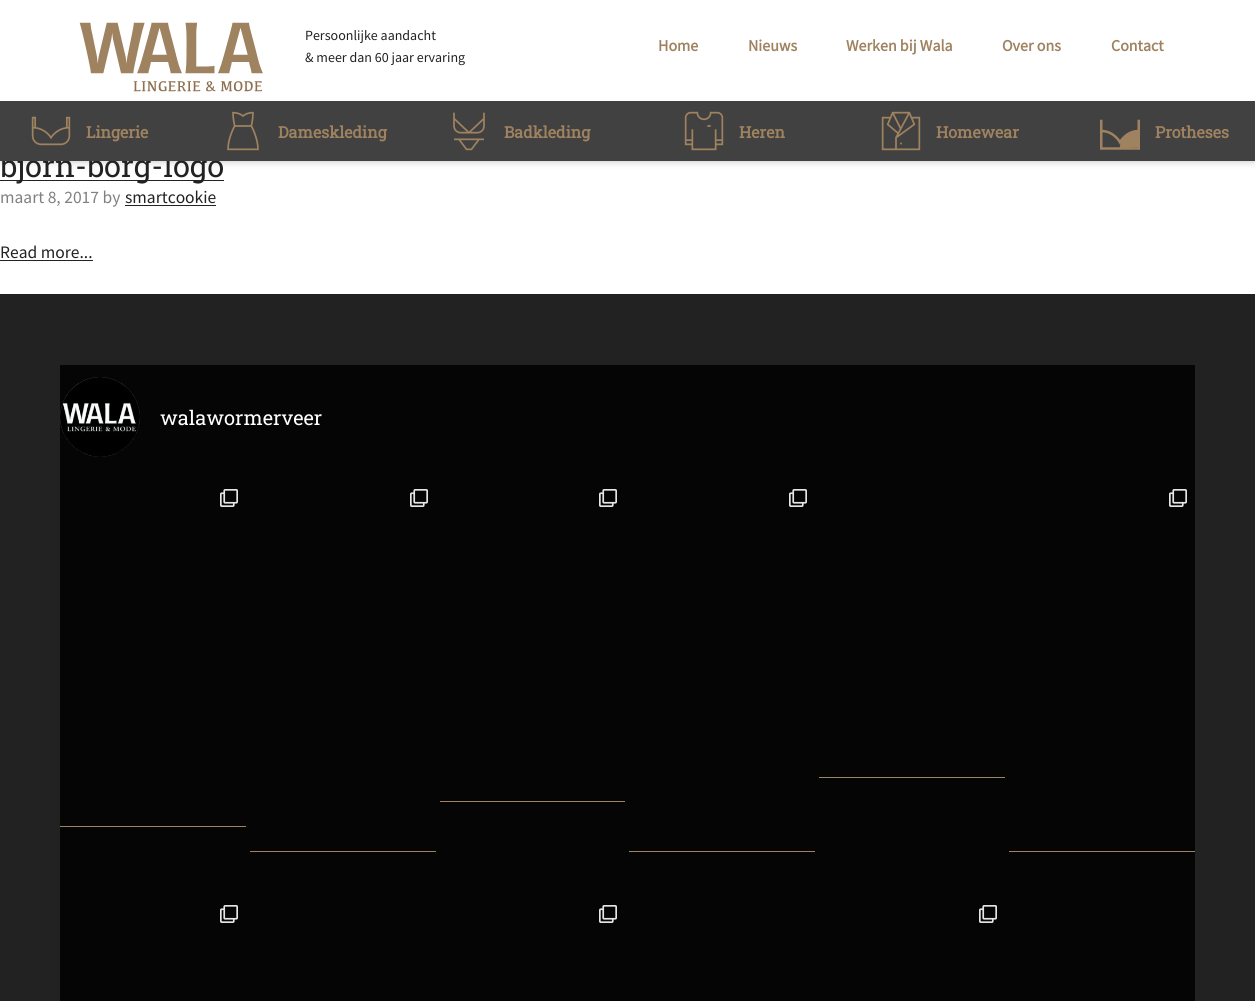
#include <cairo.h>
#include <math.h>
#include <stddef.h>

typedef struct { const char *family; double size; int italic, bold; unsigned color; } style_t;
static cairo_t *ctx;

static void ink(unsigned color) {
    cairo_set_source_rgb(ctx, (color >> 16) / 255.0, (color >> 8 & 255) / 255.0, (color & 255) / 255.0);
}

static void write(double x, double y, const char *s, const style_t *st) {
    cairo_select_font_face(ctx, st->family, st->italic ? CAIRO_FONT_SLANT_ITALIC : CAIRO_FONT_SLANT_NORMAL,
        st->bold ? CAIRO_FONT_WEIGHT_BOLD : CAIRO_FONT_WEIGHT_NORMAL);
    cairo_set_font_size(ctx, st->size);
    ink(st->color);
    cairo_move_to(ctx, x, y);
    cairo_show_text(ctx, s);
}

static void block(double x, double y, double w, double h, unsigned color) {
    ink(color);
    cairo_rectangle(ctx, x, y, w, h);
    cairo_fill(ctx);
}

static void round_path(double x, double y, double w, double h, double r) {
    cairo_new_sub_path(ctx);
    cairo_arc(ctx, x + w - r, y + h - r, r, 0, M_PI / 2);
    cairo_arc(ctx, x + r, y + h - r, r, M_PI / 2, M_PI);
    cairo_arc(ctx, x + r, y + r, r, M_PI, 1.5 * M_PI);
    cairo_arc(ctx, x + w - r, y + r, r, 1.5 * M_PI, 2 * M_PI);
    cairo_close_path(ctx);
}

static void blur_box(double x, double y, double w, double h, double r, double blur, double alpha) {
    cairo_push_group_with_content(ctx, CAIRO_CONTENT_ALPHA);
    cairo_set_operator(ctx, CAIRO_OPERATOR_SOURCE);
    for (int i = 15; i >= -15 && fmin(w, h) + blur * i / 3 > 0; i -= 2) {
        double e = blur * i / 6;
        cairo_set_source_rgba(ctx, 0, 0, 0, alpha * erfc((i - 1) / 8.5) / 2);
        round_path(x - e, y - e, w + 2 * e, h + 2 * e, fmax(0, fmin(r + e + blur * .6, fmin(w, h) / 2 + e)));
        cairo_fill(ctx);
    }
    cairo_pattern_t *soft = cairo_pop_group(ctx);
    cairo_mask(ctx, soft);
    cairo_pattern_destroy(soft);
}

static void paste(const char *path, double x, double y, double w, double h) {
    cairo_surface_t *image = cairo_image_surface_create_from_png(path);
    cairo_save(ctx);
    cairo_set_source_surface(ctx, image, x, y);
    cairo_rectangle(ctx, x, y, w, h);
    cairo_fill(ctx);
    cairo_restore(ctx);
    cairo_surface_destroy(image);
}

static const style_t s1 = {"Source Sans Pro", 14, 0, 0, 0x222222};
static const style_t s2 = {"Source Sans Pro", 16, 0, 1, 0x9f825f};
static const style_t s3 = {"Roboto Slab", 30.75, 0, 0, 0x222222};
static const style_t s4 = {"Roboto Slab", 16, 0, 1, 0x9f825f};
static const style_t s5 = {"Source Sans Pro", 17.5, 0, 0, 0x808080};
static const style_t s6 = {"Source Sans Pro", 17.5, 0, 0, 0x222222};
static const style_t s7 = {"Roboto Slab", 20, 0, 0, 0xffffff};

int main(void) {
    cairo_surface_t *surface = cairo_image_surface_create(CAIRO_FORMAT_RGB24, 1255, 1001);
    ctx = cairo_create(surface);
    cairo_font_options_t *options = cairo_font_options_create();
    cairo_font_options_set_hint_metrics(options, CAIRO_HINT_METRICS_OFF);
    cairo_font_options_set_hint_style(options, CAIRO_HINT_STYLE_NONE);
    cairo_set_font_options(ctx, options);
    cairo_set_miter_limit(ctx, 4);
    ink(0xffffff);
    cairo_paint(ctx);
    ink(0x000000);
    blur_box(0, 0, 1255, 161, 0, 4, 0.25);
    block(0, 0, 1255, 101, 0xffffff);
    paste("pic1.png", 79, 22, 184, 70);
    write(305, 40, "Persoonlijke aandacht", &s1);
    write(305, 62, "& meer dan 60 jaar ervaring", &s1);
    write(658, 51, "Home", &s2);
    write(748, 51, "Nieuws", &s2);
    write(846, 51, "Werken bij Wala", &s2);
    write(1002, 51, "Over ons", &s2);
    write(1111, 51, "Contact", &s2);
    block(0, 180, 224, 1, 0x222222);
    write(0, 177, "bjorn-borg-logo", &s3);
    block(0, 101, 1255, 60, 0x414141);
    paste("pic2.png", 31, 116, 40, 30);
    write(86, 138, "Lingerie", &s4);
    paste("pic3.png", 227, 111, 32, 40);
    write(278, 138, "Dameskleding", &s4);
    paste("pic4.png", 453, 112, 32, 39);
    write(504, 138, "Badkleding", &s4);
    paste("pic5.png", 684, 111, 40, 40);
    write(739, 138, "Heren", &s4);
    paste("pic6.png", 881, 111, 40, 40);
    write(936, 138, "Homewear", &s4);
    paste("pic7.png", 1100, 119, 40, 31);
    write(1155, 138, "Protheses", &s4);
    write(0, 203, "maart 8, 2017 by", &s5);
    write(125, 203, "smartcookie", &s6);
    block(125, 205, 91, 1, 0x222222);
    write(0, 258, "Read more...", &s6);
    block(0, 260, 93, 1, 0x222222);
    block(0, 294, 1255, 707, 0x222222);
    block(60, 365, 1135, 636, 0x050505);
    paste("pic8.png", 60, 377, 80, 80);
    write(160, 425, "walawormerveer", &s7);
    block(60, 826, 186, 1, 0x9f825f);
    paste("pic9.png", 220, 489, 18, 18);
    block(250, 851, 186, 1, 0x9f825f);
    paste("pic9.png", 410, 489, 18, 18);
    block(440, 801, 185, 1, 0x9f825f);
    paste("pic9.png", 599, 489, 18, 18);
    block(629, 851, 186, 1, 0x9f825f);
    paste("pic9.png", 789, 489, 18, 18);
    block(819, 777, 186, 1, 0x9f825f);
    block(1009, 851, 186, 1, 0x9f825f);
    paste("pic9.png", 1169, 489, 18, 18);
    paste("pic9.png", 220, 905, 18, 18);
    paste("pic9.png", 599, 905, 18, 18);
    paste("pic9.png", 979, 905, 18, 18);
    cairo_surface_write_to_png(surface, "screenshot.png");
    cairo_font_options_destroy(options);
    cairo_destroy(ctx);
    cairo_surface_destroy(surface);
    return 0;
}
